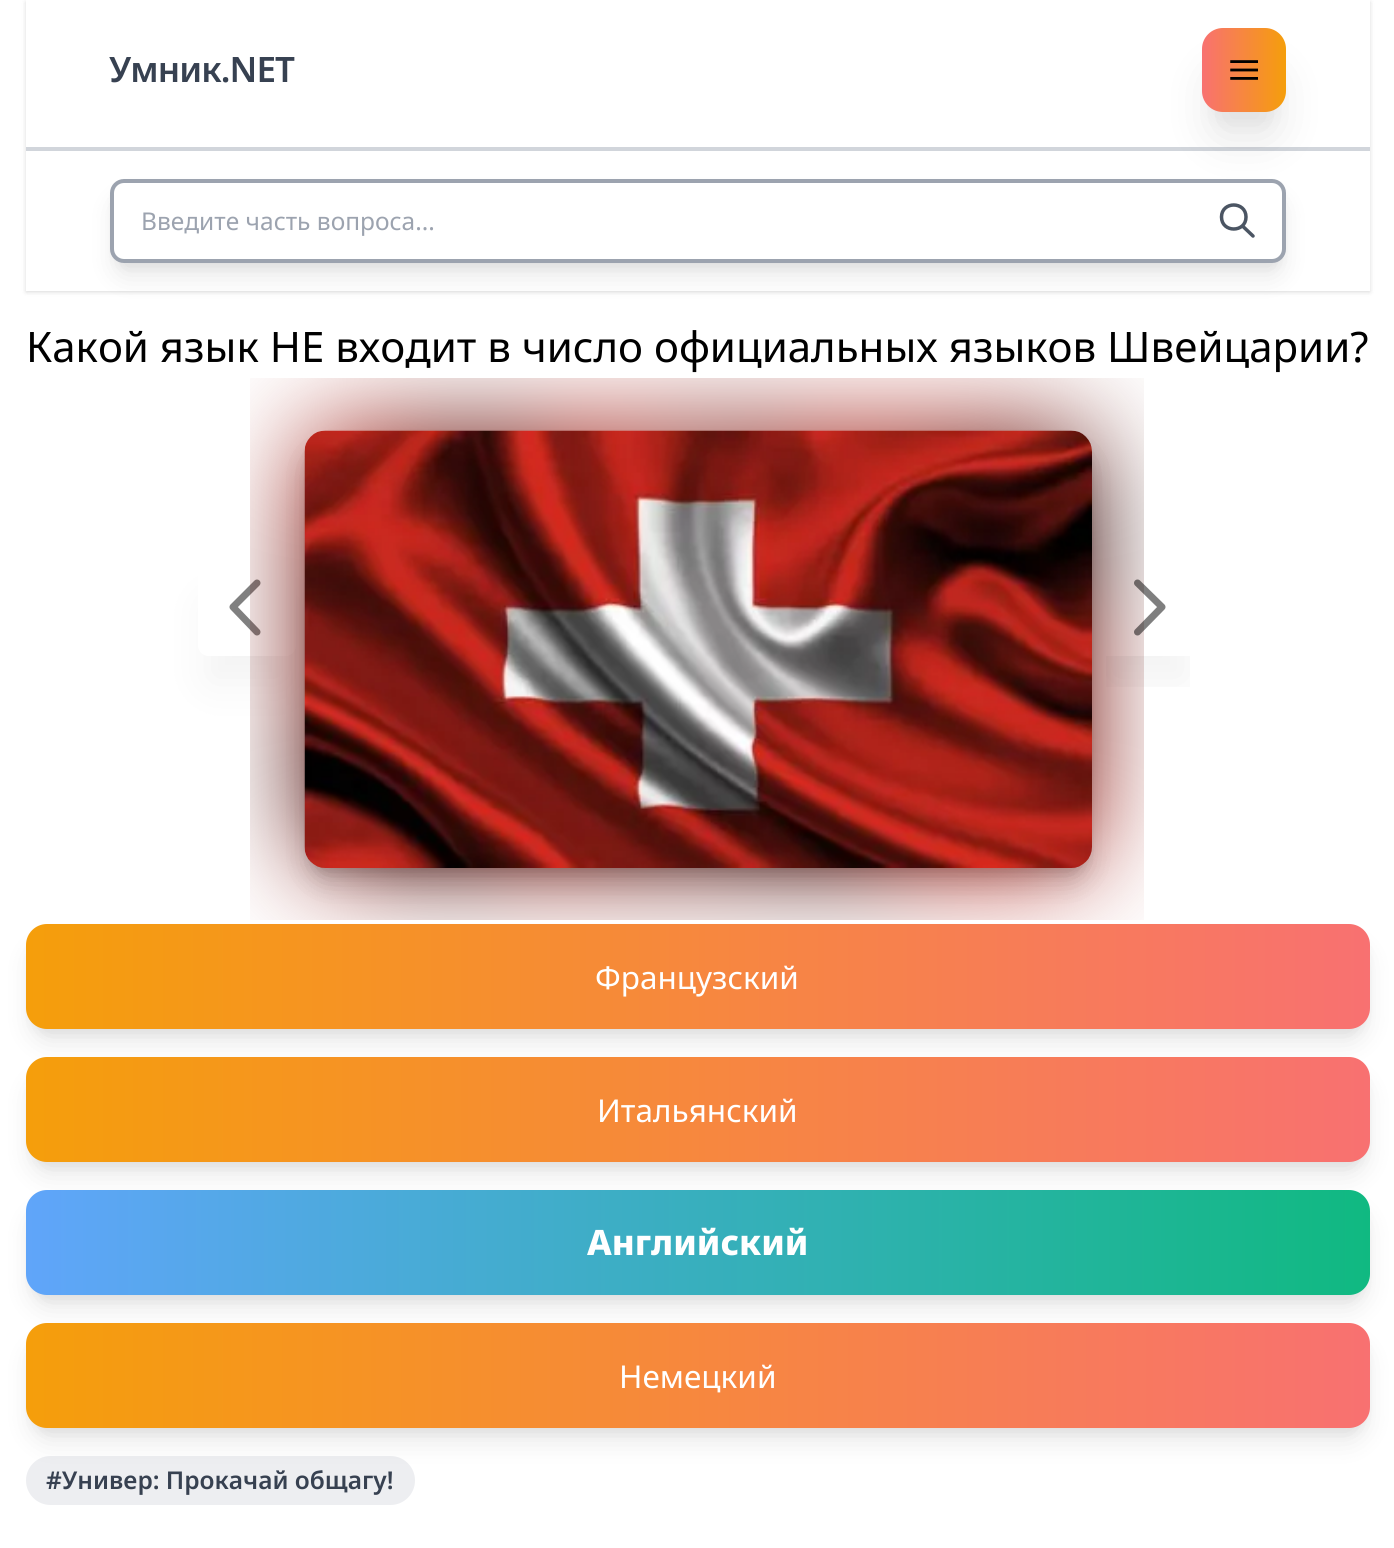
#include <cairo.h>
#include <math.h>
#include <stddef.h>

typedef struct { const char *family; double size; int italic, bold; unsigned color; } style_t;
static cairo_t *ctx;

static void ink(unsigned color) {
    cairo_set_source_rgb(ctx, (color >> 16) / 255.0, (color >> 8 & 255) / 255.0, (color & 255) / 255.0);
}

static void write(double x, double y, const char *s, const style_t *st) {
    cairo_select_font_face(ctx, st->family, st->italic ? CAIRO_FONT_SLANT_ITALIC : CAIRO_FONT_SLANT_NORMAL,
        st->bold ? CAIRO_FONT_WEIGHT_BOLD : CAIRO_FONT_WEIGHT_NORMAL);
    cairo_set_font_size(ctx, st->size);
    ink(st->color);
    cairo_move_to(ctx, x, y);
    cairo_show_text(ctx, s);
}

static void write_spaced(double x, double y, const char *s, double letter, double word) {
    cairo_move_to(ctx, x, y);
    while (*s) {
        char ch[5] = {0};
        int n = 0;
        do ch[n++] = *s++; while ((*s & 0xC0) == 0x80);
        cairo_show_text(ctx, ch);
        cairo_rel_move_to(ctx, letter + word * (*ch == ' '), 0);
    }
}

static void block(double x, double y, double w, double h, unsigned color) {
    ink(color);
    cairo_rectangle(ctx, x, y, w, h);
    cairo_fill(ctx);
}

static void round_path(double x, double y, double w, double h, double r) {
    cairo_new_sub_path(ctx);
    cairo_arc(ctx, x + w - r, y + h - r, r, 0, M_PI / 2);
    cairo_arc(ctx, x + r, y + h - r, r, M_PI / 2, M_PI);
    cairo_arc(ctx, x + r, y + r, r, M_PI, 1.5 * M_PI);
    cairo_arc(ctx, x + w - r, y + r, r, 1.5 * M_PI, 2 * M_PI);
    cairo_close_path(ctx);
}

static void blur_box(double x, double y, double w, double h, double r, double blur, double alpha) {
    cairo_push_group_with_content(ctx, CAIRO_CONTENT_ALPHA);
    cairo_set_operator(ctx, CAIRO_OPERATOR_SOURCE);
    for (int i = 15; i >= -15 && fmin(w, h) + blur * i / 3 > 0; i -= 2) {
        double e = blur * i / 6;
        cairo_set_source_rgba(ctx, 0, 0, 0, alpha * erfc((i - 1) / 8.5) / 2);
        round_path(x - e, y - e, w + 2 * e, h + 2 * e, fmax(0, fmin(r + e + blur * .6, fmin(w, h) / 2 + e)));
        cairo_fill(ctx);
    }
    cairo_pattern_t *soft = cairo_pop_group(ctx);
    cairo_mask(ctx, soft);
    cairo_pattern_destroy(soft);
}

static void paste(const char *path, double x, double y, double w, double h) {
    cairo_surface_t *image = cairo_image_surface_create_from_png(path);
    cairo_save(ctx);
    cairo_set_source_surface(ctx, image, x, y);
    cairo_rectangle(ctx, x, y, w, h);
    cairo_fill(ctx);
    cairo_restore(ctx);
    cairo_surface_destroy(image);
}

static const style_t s1 = {"Noto Sans", 24.5, 0, 0, 0x9ca3af};
static const style_t s2 = {"Noto Sans", 42, 0, 0, 0x000000};
static const style_t s3 = {"Noto Sans", 31.5, 0, 0, 0xffffff};
static const style_t s4 = {"Noto Sans ExtraBold", 35, 0, 0, 0xffffff};
static const style_t s5 = {"Noto Sans SemiBold", 24.5, 0, 0, 0x374151};

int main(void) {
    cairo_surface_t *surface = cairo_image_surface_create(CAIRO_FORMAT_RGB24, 1394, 1548);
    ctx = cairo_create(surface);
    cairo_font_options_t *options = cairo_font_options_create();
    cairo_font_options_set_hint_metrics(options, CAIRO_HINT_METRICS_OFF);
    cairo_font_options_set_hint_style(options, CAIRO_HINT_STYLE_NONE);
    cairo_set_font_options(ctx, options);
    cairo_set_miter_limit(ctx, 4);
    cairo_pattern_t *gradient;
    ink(0xffffff);
    cairo_paint(ctx);
    ink(0x000000);
    blur_box(26, 2, 1344, 290, 0, 2, 0.06);
    blur_box(26, 2, 1344, 290, 0, 2.5, 0.1);
    block(26, 0, 1344, 291, 0xffffff);
    block(26, 147, 1344, 4, 0xd1d5db);
    cairo_select_font_face(ctx, "Noto Sans SemiBold", CAIRO_FONT_SLANT_NORMAL, CAIRO_FONT_WEIGHT_NORMAL);
    cairo_set_font_size(ctx, 35);
    ink(0x374151);
    write_spaced(109, 82, "Умник.NET", -0.9, 0);
    ink(0x000000);
    blur_box(1211, 54, 67, 67, 12, 9, 0.04);
    blur_box(1211, 72, 67, 66, 12, 22, 0.1);
    gradient = cairo_pattern_create_linear(1202, 70, 1286, 70);
    cairo_pattern_add_color_stop_rgba(gradient, 0, 0.973, 0.443, 0.443, 1);
    cairo_pattern_add_color_stop_rgba(gradient, 1, 0.961, 0.62, 0.043, 1);
    cairo_set_source(ctx, gradient);
    cairo_pattern_destroy(gradient);
    round_path(1202, 28, 84, 84, 21);
    cairo_fill(ctx);
    paste("pic1.png", 1230, 60, 28, 20);
    ink(0x000000);
    blur_box(114, 189, 1169, 77, 11, 5, 0.05);
    blur_box(116, 201, 1165, 74, 9, 13, 0.1);
    ink(0xffffff);
    round_path(112, 181, 1172, 80, 12);
    cairo_fill_preserve(ctx);
    ink(0x9ca3af);
    cairo_set_line_width(ctx, 4);
    cairo_stroke(ctx);
    write(141, 230, "Введите часть вопроса...", &s1);
    cairo_new_path(ctx);
    cairo_move_to(ctx, 1253, 236);
    cairo_line_to(ctx, 1242.5, 226);
    cairo_move_to(ctx, 1246, 217);
    cairo_curve_to(ctx, 1246, 233, 1221.5, 233, 1221.5, 217);
    cairo_curve_to(ctx, 1221.5, 201, 1246, 201, 1246, 217);
    cairo_close_path(ctx);
    ink(0x4b5563);
    cairo_set_line_width(ctx, 3.5);
    cairo_set_line_cap(ctx, CAIRO_LINE_CAP_ROUND);
    cairo_set_line_join(ctx, CAIRO_LINE_JOIN_ROUND);
    cairo_stroke(ctx);
    write(26, 362, "Какой язык НЕ входит в число официальных языков Швейцарии?", &s2);
    cairo_save(ctx);
    cairo_set_fill_rule(ctx, CAIRO_FILL_RULE_EVEN_ODD);
    cairo_new_path(ctx);
    cairo_move_to(ctx, 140, 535);
    cairo_line_to(ctx, 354, 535);
    cairo_line_to(ctx, 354, 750);
    cairo_line_to(ctx, 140, 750);
    cairo_close_path(ctx);
    cairo_move_to(ctx, 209, 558);
    cairo_line_to(ctx, 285, 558);
    cairo_curve_to(ctx, 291, 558, 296, 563, 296, 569);
    cairo_line_to(ctx, 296, 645);
    cairo_curve_to(ctx, 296, 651, 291, 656, 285, 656);
    cairo_line_to(ctx, 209, 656);
    cairo_curve_to(ctx, 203, 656, 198, 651, 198, 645);
    cairo_line_to(ctx, 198, 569);
    cairo_curve_to(ctx, 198, 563, 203, 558, 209, 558);
    cairo_close_path(ctx);
    cairo_clip(ctx);
    ink(0x808080);
    blur_box(207, 602, 80, 81, 2, 22, 0.1);
    cairo_restore(ctx);
    cairo_new_path(ctx);
    cairo_move_to(ctx, 257, 632);
    cairo_line_to(ctx, 233, 607);
    cairo_line_to(ctx, 257, 583);
    ink(0x808080);
    cairo_set_line_width(ctx, 7);
    cairo_stroke(ctx);
    ink(0x000000);
    blur_box(308, 441, 781, 431, 18, 5, 0.05);
    blur_box(310, 453, 777, 427, 16, 13, 0.1);
    blur_box(30, 935, 1337, 98, 18, 5, 0.05);
    blur_box(32, 947, 1333, 94, 16, 13, 0.1);
    paste("pic2.png", 250, 378, 894, 542);
    blur_box(308, 441, 781, 431, 18, 5, 0.05);
    blur_box(310, 453, 777, 427, 16, 13, 0.1);
    cairo_save(ctx);
    cairo_rectangle(ctx, 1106, 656, 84, 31);
    cairo_clip(ctx);
    blur_box(1108, 602, 80, 81, 2, 22, 0.05);
    cairo_restore(ctx);
    paste("pic3.png", 304, 430, 788, 438);
    cairo_new_path(ctx);
    cairo_move_to(ctx, 1137.5, 583);
    cairo_line_to(ctx, 1162, 607);
    cairo_line_to(ctx, 1137.5, 632);
    cairo_set_source_rgba(ctx, 0, 0, 0, 0.5);
    cairo_stroke(ctx);
    gradient = cairo_pattern_create_linear(26, 977, 1370, 977);
    cairo_pattern_add_color_stop_rgba(gradient, 0, 0.961, 0.62, 0.043, 1);
    cairo_pattern_add_color_stop_rgba(gradient, 1, 0.973, 0.443, 0.443, 1);
    cairo_set_source(ctx, gradient);
    cairo_pattern_destroy(gradient);
    round_path(26, 924, 1344, 105, 21);
    cairo_fill(ctx);
    write(595, 989, "Французский", &s3);
    ink(0x000000);
    blur_box(30, 1068, 1337, 98, 18, 5, 0.05);
    blur_box(32, 1080, 1333, 94, 16, 13, 0.1);
    gradient = cairo_pattern_create_linear(26, 1110, 1370, 1110);
    cairo_pattern_add_color_stop_rgba(gradient, 0, 0.961, 0.62, 0.043, 1);
    cairo_pattern_add_color_stop_rgba(gradient, 1, 0.973, 0.443, 0.443, 1);
    cairo_set_source(ctx, gradient);
    cairo_pattern_destroy(gradient);
    round_path(26, 1057, 1344, 105, 21);
    cairo_fill(ctx);
    write(597, 1122, "Итальянский", &s3);
    ink(0x000000);
    blur_box(30, 1201, 1337, 98, 18, 5, 0.05);
    blur_box(32, 1213, 1333, 94, 16, 13, 0.1);
    gradient = cairo_pattern_create_linear(26, 1243, 1370, 1243);
    cairo_pattern_add_color_stop_rgba(gradient, 0, 0.376, 0.647, 0.98, 1);
    cairo_pattern_add_color_stop_rgba(gradient, 1, 0.063, 0.725, 0.506, 1);
    cairo_set_source(ctx, gradient);
    cairo_pattern_destroy(gradient);
    round_path(26, 1190, 1344, 105, 21);
    cairo_fill(ctx);
    write(587, 1255, "Английский", &s4);
    ink(0x000000);
    blur_box(30, 1334, 1337, 98, 18, 5, 0.05);
    ink(0xedeef1);
    round_path(26, 1456, 389, 49, 24.5);
    cairo_fill(ctx);
    ink(0x000000);
    blur_box(32, 1346, 1333, 94, 16, 13, 0.1);
    gradient = cairo_pattern_create_linear(26, 1376, 1370, 1376);
    cairo_pattern_add_color_stop_rgba(gradient, 0, 0.961, 0.62, 0.043, 1);
    cairo_pattern_add_color_stop_rgba(gradient, 1, 0.973, 0.443, 0.443, 1);
    cairo_set_source(ctx, gradient);
    cairo_pattern_destroy(gradient);
    round_path(26, 1323, 1344, 105, 21);
    cairo_fill(ctx);
    write(619, 1388, "Немецкий", &s3);
    write(46, 1489, "#Универ: Прокачай общагу!", &s5);
    cairo_surface_write_to_png(surface, "screenshot.png");
    cairo_font_options_destroy(options);
    cairo_destroy(ctx);
    cairo_surface_destroy(surface);
    return 0;
}
